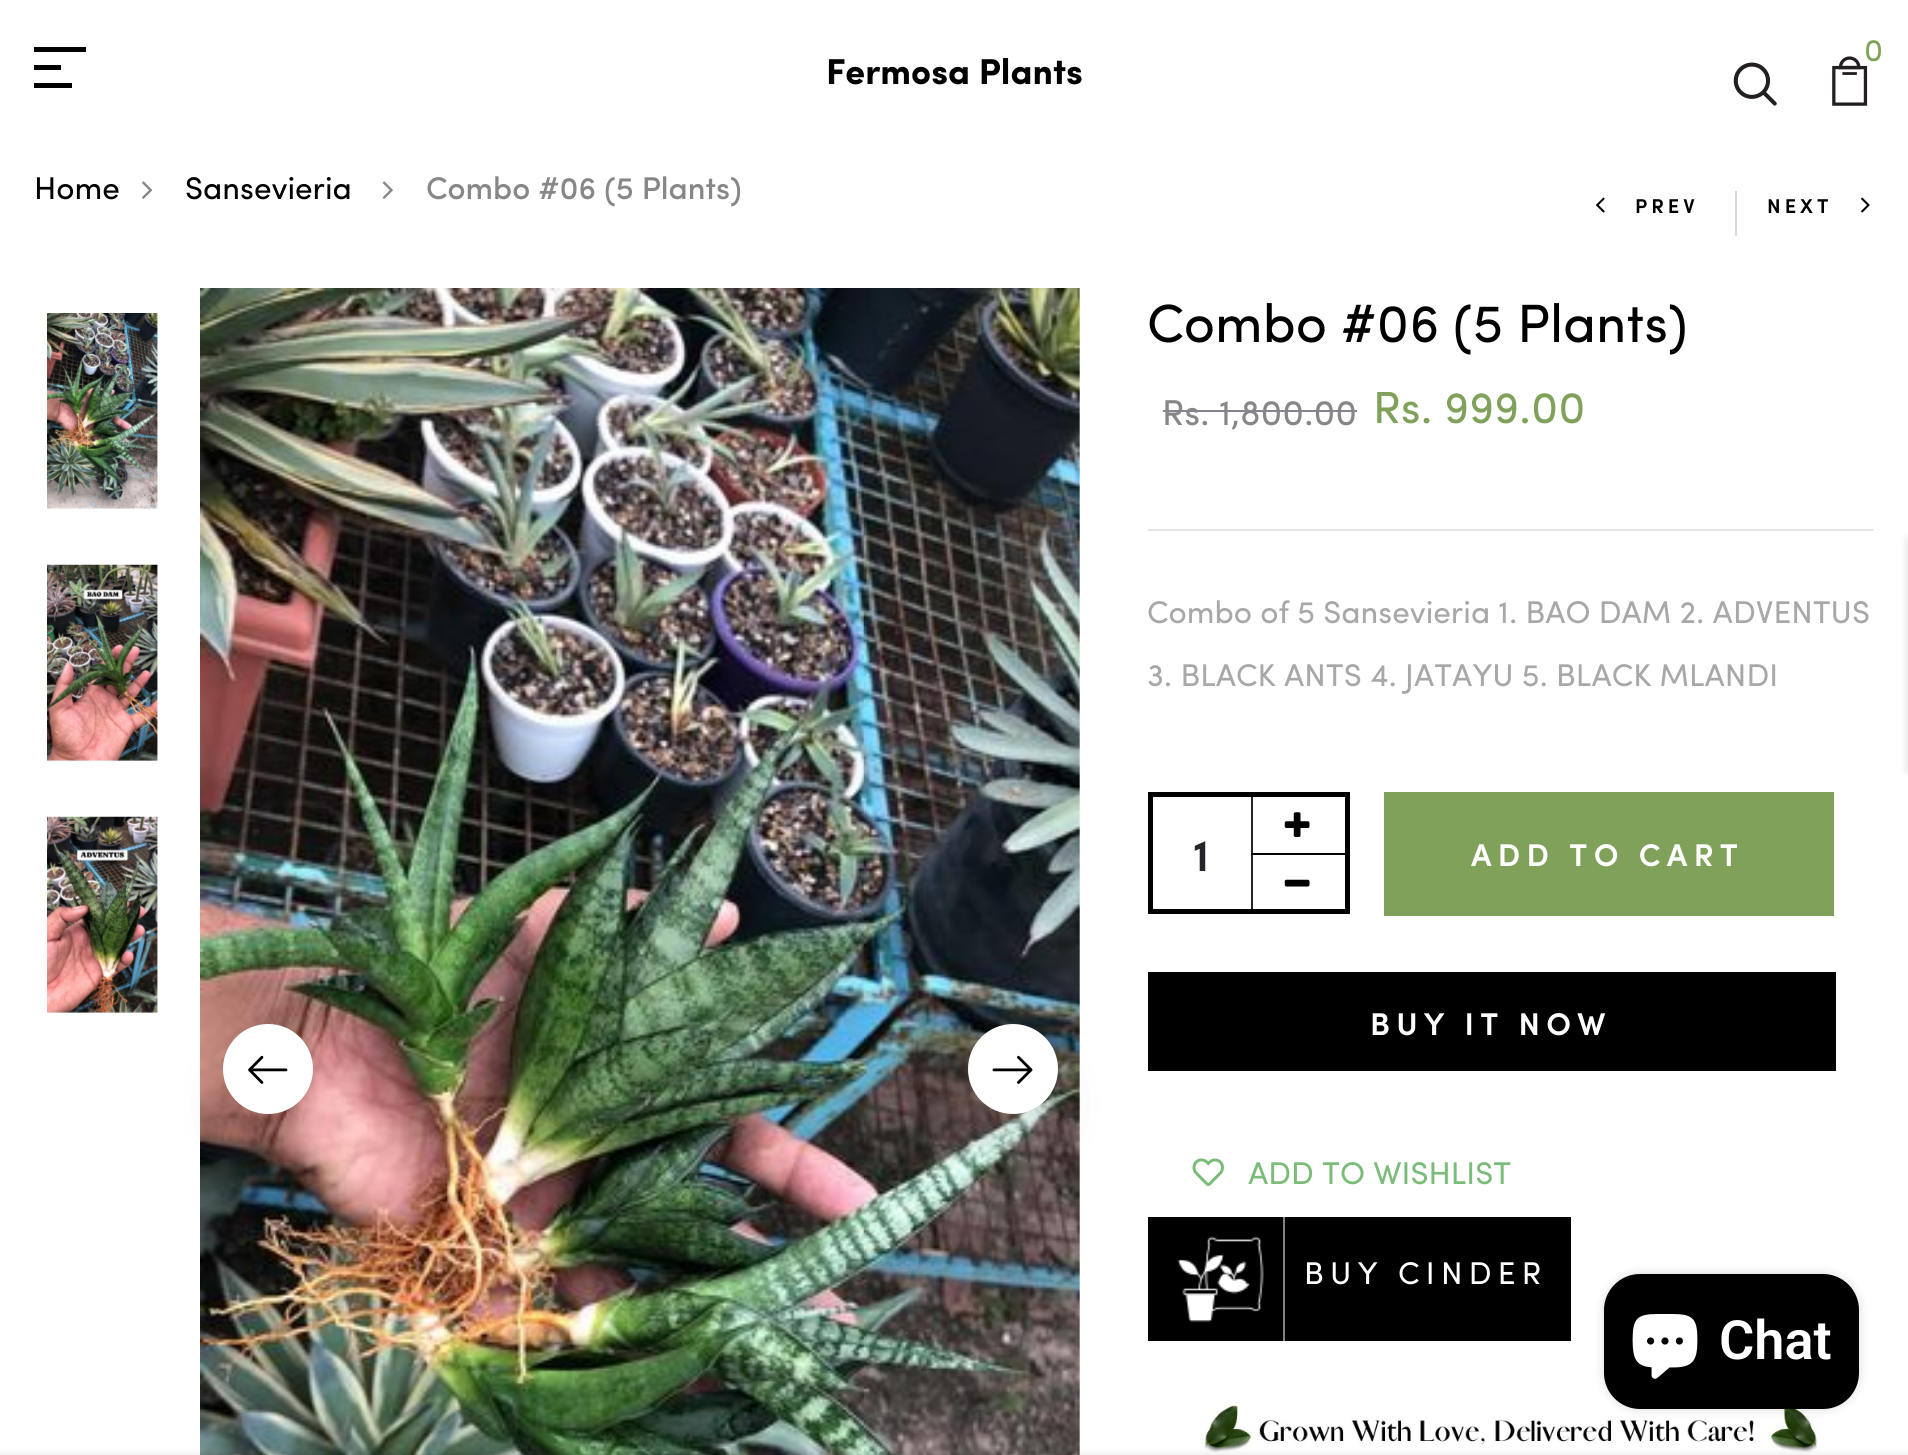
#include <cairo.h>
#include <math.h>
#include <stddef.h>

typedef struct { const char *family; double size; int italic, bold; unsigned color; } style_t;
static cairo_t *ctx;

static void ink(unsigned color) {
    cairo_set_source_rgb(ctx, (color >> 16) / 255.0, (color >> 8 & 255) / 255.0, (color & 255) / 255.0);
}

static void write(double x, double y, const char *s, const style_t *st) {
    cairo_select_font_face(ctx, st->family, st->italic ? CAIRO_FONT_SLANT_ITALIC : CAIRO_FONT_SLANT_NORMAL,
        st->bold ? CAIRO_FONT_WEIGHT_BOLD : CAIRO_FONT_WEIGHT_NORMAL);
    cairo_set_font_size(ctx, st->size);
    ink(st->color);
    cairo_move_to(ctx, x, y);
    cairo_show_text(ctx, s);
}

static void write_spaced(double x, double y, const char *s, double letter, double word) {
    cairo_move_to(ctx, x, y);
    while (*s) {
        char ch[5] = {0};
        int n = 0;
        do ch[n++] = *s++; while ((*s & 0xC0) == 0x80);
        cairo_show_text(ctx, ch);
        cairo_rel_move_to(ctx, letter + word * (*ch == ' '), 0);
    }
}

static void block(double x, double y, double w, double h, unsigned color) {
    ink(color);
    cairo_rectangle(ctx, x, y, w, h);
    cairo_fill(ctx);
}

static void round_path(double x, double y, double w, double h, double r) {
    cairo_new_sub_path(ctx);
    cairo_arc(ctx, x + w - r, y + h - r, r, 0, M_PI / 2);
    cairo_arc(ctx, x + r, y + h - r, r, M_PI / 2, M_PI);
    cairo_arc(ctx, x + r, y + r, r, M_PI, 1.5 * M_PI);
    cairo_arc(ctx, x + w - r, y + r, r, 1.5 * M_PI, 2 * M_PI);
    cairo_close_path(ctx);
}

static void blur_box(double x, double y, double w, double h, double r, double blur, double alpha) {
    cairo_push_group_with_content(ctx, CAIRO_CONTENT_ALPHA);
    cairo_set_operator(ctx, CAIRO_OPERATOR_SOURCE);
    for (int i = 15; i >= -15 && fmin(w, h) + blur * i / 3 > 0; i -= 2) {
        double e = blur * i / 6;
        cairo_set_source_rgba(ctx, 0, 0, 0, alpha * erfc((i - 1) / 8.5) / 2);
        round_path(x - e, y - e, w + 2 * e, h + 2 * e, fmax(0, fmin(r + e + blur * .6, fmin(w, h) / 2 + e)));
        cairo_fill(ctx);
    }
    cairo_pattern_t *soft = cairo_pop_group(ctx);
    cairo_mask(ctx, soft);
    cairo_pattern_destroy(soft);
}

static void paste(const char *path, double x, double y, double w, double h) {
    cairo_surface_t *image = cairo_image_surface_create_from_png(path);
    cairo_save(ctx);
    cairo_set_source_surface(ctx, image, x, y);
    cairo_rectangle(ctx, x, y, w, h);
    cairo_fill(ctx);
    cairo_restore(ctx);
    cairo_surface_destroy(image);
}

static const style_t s1 = {"Sofia", 36, 0, 1, 0x000000};
static const style_t s2 = {"Sofia", 31.5, 0, 0, 0x7fa15a};
static const style_t s3 = {"Sofia", 31.5, 0, 0, 0x000000};
static const style_t s4 = {"Sofia Medium", 31.5, 0, 0, 0x878787};
static const style_t s5 = {"Sofia", 54, 0, 0, 0x000000};
static const style_t s6 = {"Sofia", 36, 0, 0, 0x878787};
static const style_t s7 = {"Sofia", 45, 0, 0, 0x7fa15a};
static const style_t s8 = {"Sofia", 31.5, 0, 0, 0xa8a8a8};
static const style_t s9 = {"Sofia SemiBold", 45, 0, 0, 0x232529};
static const style_t s10 = {"Sofia", 31.5, 0, 0, 0x7abc78};
static const style_t s11 = {"Roboto SemiBold", 54, 0, 0, 0xffffff};

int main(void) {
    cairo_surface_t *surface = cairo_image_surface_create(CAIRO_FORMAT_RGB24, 1908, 1455);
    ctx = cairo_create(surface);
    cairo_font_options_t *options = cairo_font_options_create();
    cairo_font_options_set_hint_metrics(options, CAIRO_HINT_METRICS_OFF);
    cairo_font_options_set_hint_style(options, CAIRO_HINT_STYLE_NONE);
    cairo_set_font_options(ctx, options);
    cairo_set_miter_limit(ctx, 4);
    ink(0xffffff);
    cairo_paint(ctx);
    block(34, 47, 52, 5, 0x000000);
    block(34, 65, 27, 5, 0x000000);
    block(34, 83, 38, 5, 0x000000);
    write(826, 84, "Fermosa Plants", &s1);
    paste("pic1.png", 1832, 56, 36, 50);
    write(1864, 61, "0", &s2);
    paste("pic2.png", 1733, 62, 44, 44);
    write(34, 199, "Home", &s3);
    paste("pic3.png", 142, 181, 11, 18);
    write(185, 199, "Sansevieria", &s3);
    paste("pic4.png", 382, 181, 11, 18);
    write(426, 199, "Combo #06 (5 Plants)", &s4);
    paste("pic5.png", 1596, 197, 9, 16);
    cairo_select_font_face(ctx, "Sofia SemiBold", CAIRO_FONT_SLANT_NORMAL, CAIRO_FONT_WEIGHT_NORMAL);
    cairo_set_font_size(ctx, 20);
    ink(0x000000);
    write_spaced(1635, 213, "PREV", 4, 0);
    block(1735, 191, 2, 45, 0xd6d6d6);
    ink(0x000000);
    write_spaced(1767, 213, "NEXT", 4, 0);
    paste("pic6.png", 1861, 197, 9, 16);
    paste("pic7.png", 47, 313, 111, 196);
    paste("pic8.png", 47, 564, 111, 197);
    paste("pic9.png", 47, 816, 111, 197);
    paste("pic10.png", 200, 288, 880, 1167);
    ink(0x000000);
    blur_box(223, 1058, 90, 90, 45, 28, 0.08);
    ink(0xffffff);
    cairo_arc(ctx, 268, 1069, 45, 0, 2 * M_PI);
    cairo_fill(ctx);
    paste("pic11.png", 248, 1055, 40, 29);
    ink(0x000000);
    blur_box(968, 1058, 90, 90, 45, 28, 0.08);
    ink(0xffffff);
    cairo_arc(ctx, 1013, 1069, 45, 0, 2 * M_PI);
    cairo_fill(ctx);
    paste("pic12.png", 992, 1055, 41, 29);
    write(1147, 342, "Combo #06 (5 Plants)", &s5);
    write(1162, 425, "Rs. 1,800.00", &s6);
    block(1163, 410, 194, 2, 0x83868c);
    write(1373, 423, "Rs. 999.00", &s7);
    block(1148, 529, 726, 2, 0xe7e7e7);
    write(1147, 623, "Combo of 5 Sansevieria 1. BAO DAM 2. ADVENTUS", &s8);
    write(1147, 686, "3. BLACK ANTS 4. JATAYU 5. BLACK MLANDI", &s8);
    cairo_rectangle(ctx, 1150.5, 794.5, 197, 117);
    ink(0x000000);
    cairo_set_line_width(ctx, 5);
    cairo_stroke(ctx);
    paste("pic13.png", 1284, 812, 26, 25);
    block(1251, 797, 2, 112, 0x232529);
    write(1193, 871, "1", &s9);
    block(1251, 853, 95, 2, 0x000000);
    paste("pic14.png", 1284, 879, 26, 8);
    block(1384, 792, 450, 124, 0x7fa15a);
    cairo_set_font_size(ctx, 31.5);
    ink(0xffffff);
    write_spaced(1471, 866, "ADD TO CART", 6.25, 0);
    block(1148, 972, 688, 99, 0x000000);
    ink(0xffffff);
    write_spaced(1370, 1035, "BUY IT NOW", 6.25, 0);
    paste("pic15.png", 1192, 1158, 32, 28);
    write(1248, 1184, "ADD TO WISHLIST", &s10);
    block(1148, 1217, 423, 124, 0x000000);
    paste("pic16.png", 1177, 1236, 87, 87);
    block(1283, 1217, 2, 124, 0x808080);
    ink(0xffffff);
    write_spaced(1304, 1284, "BUY CINDER", 6.25, 0);
    paste("pic17.png", 1201, 1404, 618, 49);
    ink(0x000000);
    blur_box(0, 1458, 1908, 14, 0, 5.5, 0.2);
    blur_box(1906, 538, 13, 234, 0, 3.5, 0.1);
    blur_box(1604, 1274, 255, 135, 36, 5.5, 0.15);
    ink(0x000000);
    round_path(1604, 1274, 255, 135, 36);
    cairo_fill(ctx);
    paste("pic18.png", 1632, 1314, 66, 65);
    write(1719, 1359, "Chat", &s11);
    cairo_surface_write_to_png(surface, "screenshot.png");
    cairo_font_options_destroy(options);
    cairo_destroy(ctx);
    cairo_surface_destroy(surface);
    return 0;
}
